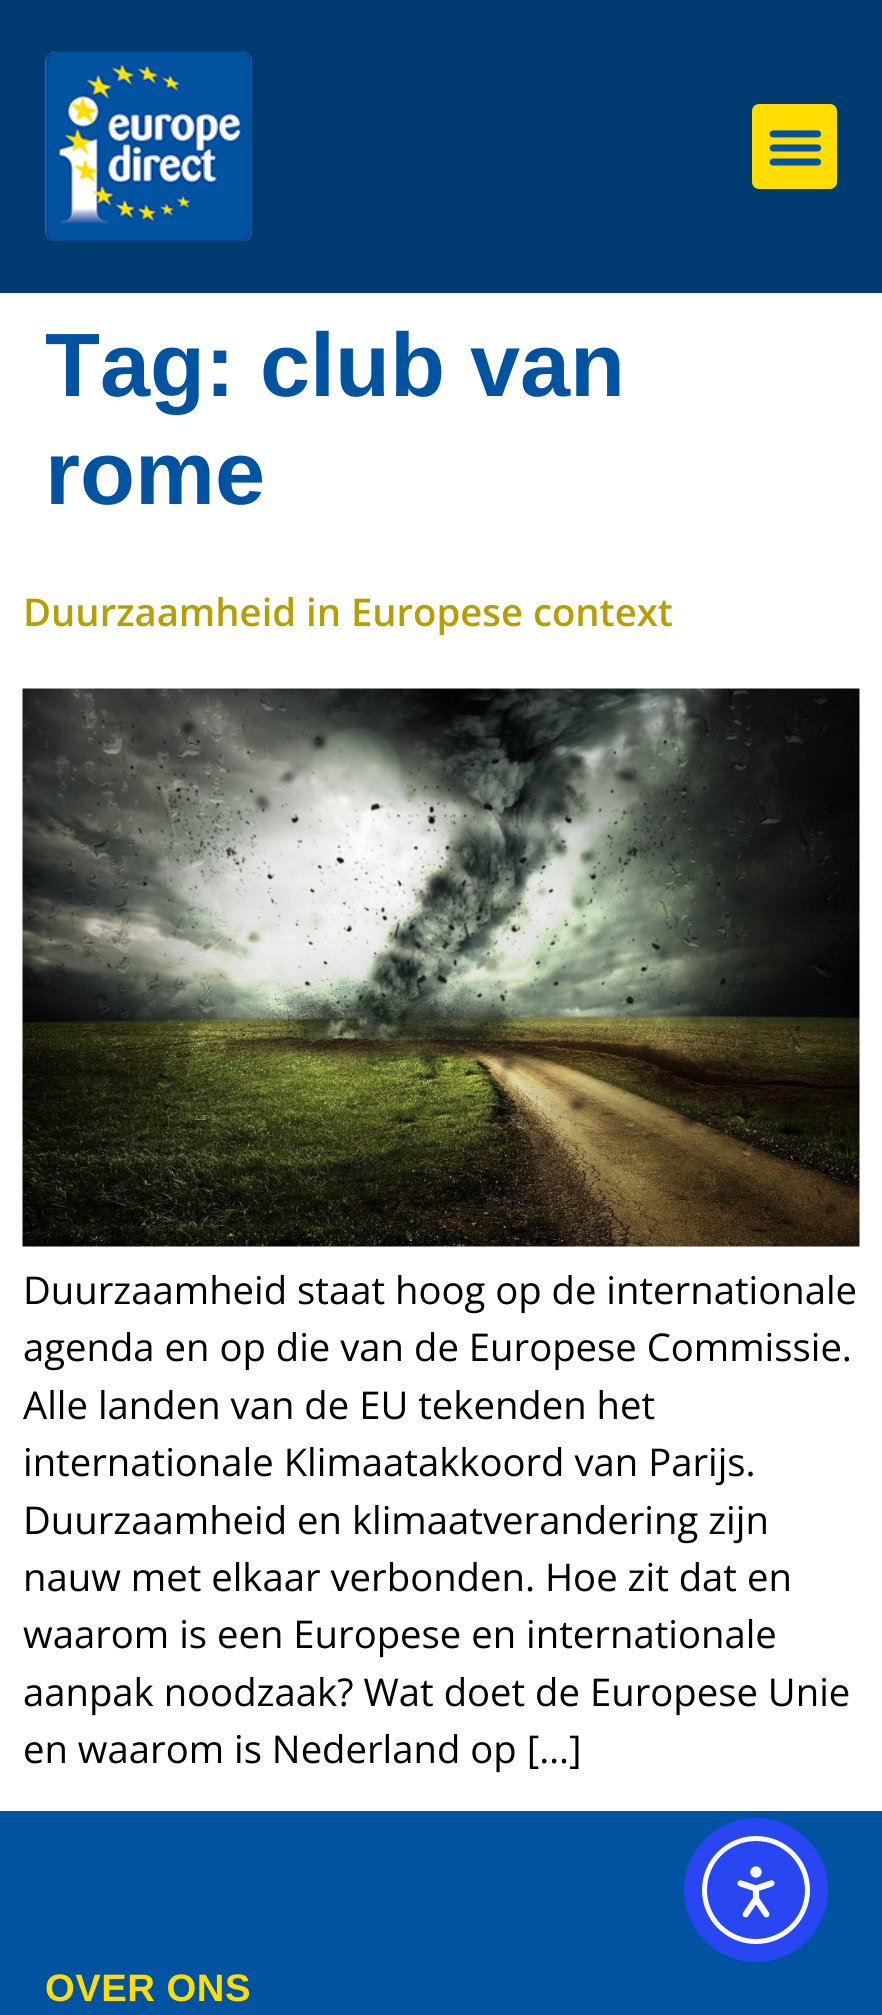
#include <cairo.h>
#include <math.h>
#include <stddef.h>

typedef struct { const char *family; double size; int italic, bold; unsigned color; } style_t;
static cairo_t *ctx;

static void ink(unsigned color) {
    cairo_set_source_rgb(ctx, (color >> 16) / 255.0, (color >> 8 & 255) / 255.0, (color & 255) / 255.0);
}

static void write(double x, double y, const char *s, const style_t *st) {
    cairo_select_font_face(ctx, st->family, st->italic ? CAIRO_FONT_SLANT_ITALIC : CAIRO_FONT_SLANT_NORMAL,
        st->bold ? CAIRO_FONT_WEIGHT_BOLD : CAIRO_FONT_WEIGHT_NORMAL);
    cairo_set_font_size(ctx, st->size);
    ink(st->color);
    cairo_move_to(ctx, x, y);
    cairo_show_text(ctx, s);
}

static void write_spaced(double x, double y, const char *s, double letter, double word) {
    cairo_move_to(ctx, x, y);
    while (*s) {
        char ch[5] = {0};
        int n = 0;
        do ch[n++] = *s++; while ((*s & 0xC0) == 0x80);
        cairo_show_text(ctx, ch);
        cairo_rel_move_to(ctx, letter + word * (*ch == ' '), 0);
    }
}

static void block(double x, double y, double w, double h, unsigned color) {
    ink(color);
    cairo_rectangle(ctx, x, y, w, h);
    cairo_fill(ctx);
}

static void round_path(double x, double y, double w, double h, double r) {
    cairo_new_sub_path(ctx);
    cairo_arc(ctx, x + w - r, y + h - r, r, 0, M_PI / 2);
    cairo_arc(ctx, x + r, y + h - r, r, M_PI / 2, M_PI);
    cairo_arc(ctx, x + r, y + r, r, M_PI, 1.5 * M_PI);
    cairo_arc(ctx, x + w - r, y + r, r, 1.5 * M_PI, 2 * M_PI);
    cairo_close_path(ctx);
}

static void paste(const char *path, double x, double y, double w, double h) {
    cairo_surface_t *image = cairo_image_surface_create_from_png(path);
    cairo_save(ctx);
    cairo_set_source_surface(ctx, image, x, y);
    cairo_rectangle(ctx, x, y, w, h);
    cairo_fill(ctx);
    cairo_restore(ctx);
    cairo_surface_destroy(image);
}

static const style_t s1 = {"Liberation Sans", 90, 0, 1, 0x0053a1};
static const style_t s2 = {"Open Sans SemiBold", 38.25, 0, 0, 0xb79f03};
static const style_t s3 = {"Open Sans", 38.25, 0, 0, 0x000000};

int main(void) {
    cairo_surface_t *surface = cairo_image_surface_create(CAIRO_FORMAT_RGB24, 882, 2015);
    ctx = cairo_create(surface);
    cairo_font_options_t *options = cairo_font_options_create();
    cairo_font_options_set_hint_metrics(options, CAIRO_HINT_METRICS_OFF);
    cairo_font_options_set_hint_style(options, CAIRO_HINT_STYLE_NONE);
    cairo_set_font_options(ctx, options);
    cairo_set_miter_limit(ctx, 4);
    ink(0xffffff);
    cairo_paint(ctx);
    block(0, 0, 882, 293, 0x003b72);
    paste("pic1.png", 45, 51, 207, 190);
    ink(0xffdd00);
    round_path(752, 104, 85, 85, 7);
    cairo_fill(ctx);
    paste("pic2.png", 769, 130, 53, 36);
    write(45, 396, "Tag: club van", &s1);
    write(45, 504, "rome", &s1);
    write(23, 626, "Duurzaamheid in Europese context", &s2);
    paste("pic3.png", 22, 688, 838, 559);
    write(23, 1304, "Duurzaamheid staat hoog op de internationale", &s3);
    write(23, 1361, "agenda en op die van de Europese Commissie.", &s3);
    write(23, 1419, "Alle landen van de EU tekenden het", &s3);
    write(23, 1476, "internationale Klimaatakkoord van Parijs.", &s3);
    write(23, 1534, "Duurzaamheid en klimaatverandering zijn", &s3);
    write(23, 1591, "nauw met elkaar verbonden. Hoe zit dat en", &s3);
    write(23, 1648, "waarom is een Europese en internationale", &s3);
    write(23, 1706, "aanpak noodzaak? Wat doet de Europese Unie", &s3);
    write(23, 1763, "en waarom is Nederland op […]", &s3);
    block(0, 1811, 882, 204, 0x0053a1);
    ink(0x2847f3);
    cairo_new_path(ctx);
    cairo_arc(ctx, 756, 1890, 72, 0, 2 * M_PI);
    cairo_fill(ctx);
    cairo_arc(ctx, 756, 1890, 51.5, 0, 2 * M_PI);
    ink(0xffffff);
    cairo_set_line_width(ctx, 5);
    cairo_stroke(ctx);
    paste("pic4.png", 737, 1866, 38, 52);
    cairo_select_font_face(ctx, "Liberation Sans", CAIRO_FONT_SLANT_NORMAL, CAIRO_FONT_WEIGHT_BOLD);
    ink(0xffdd00);
    write_spaced(45, 2001, "OVER ONS", 0.5, 0);
    cairo_surface_write_to_png(surface, "screenshot.png");
    cairo_font_options_destroy(options);
    cairo_destroy(ctx);
    cairo_surface_destroy(surface);
    return 0;
}
